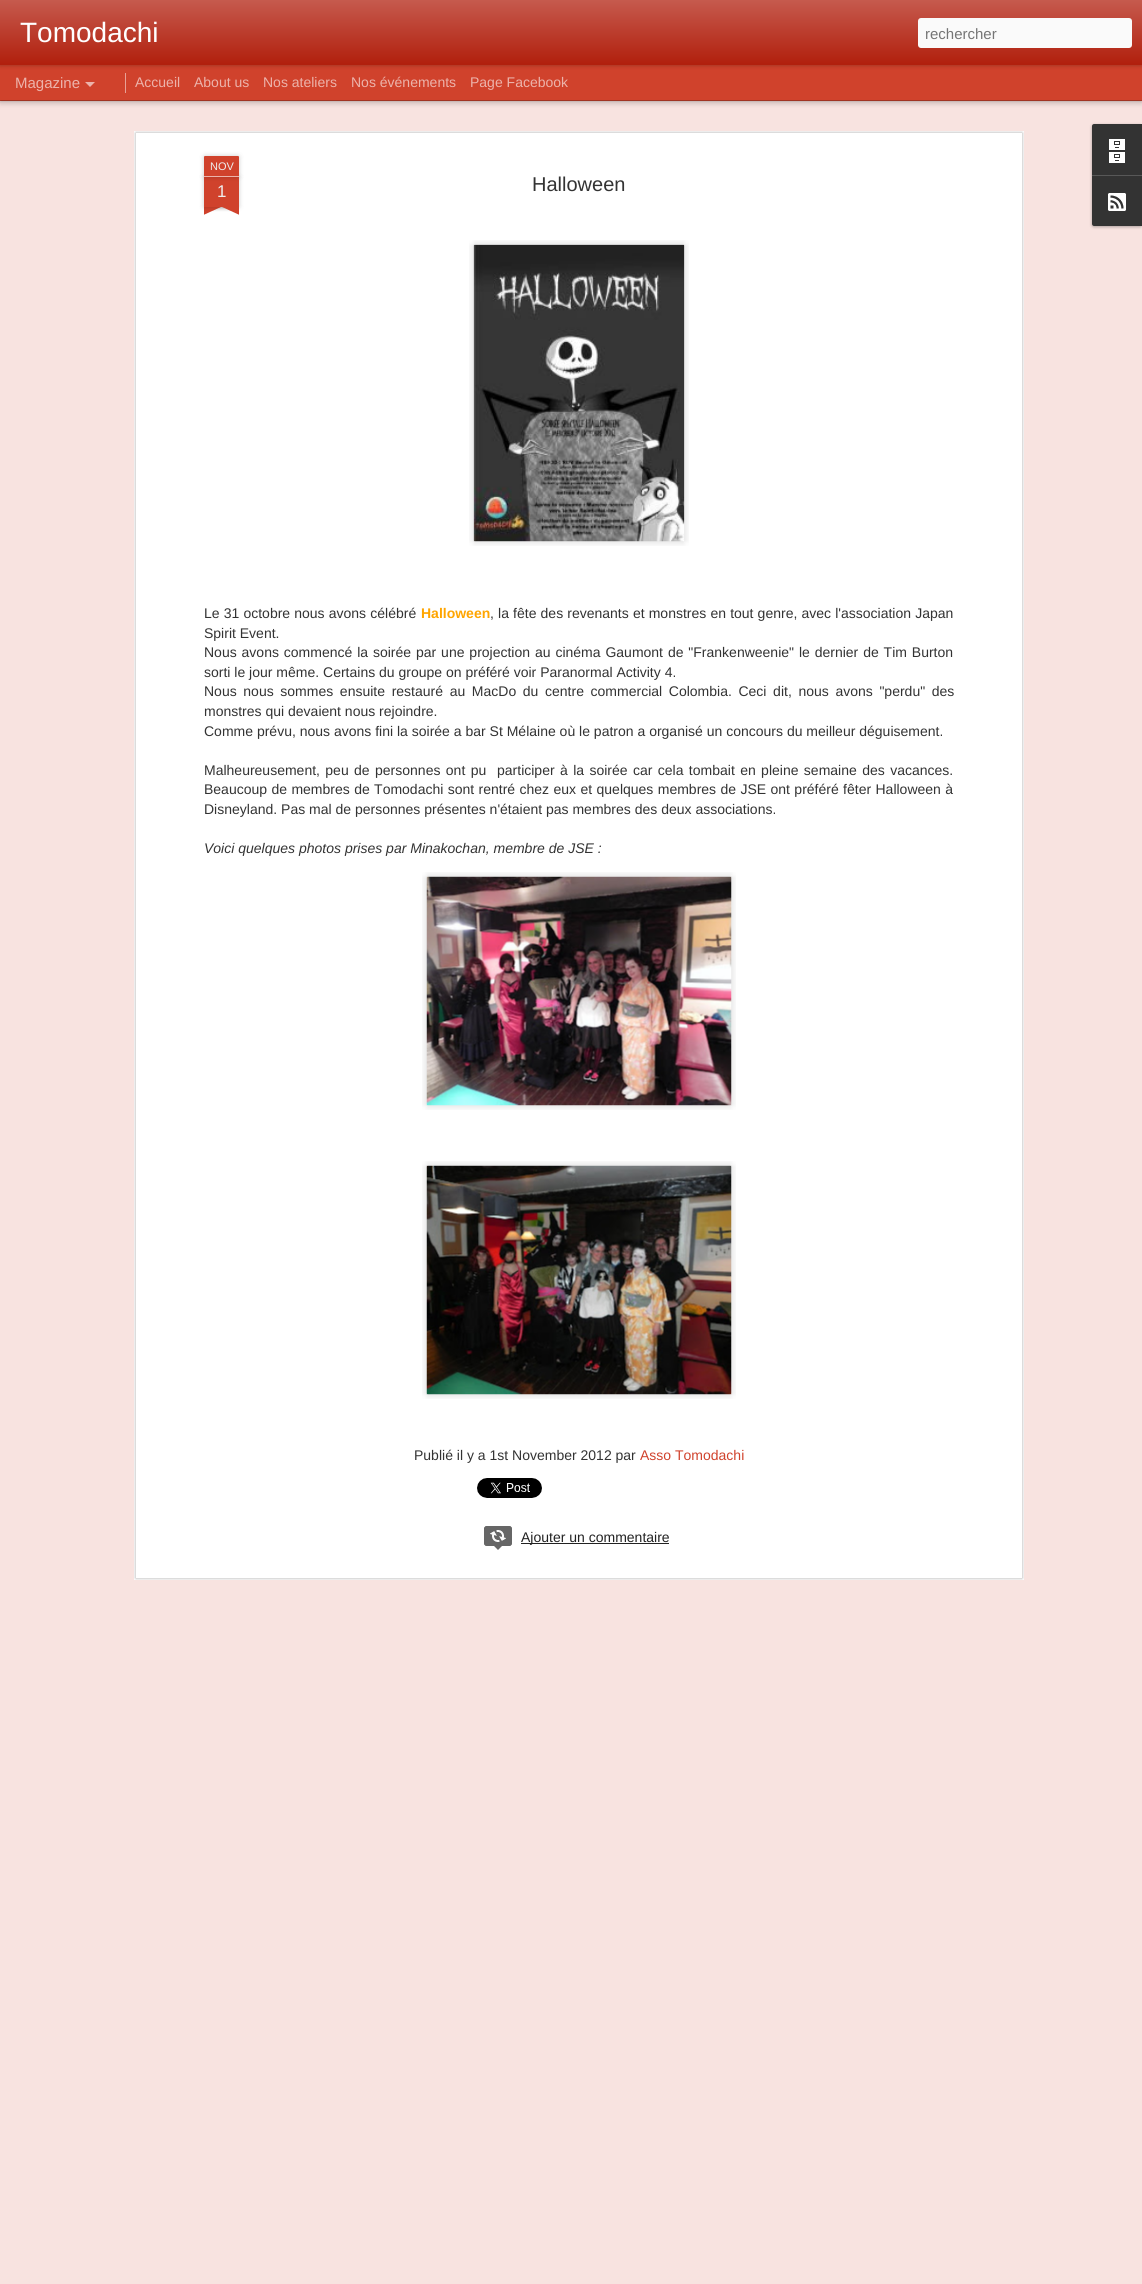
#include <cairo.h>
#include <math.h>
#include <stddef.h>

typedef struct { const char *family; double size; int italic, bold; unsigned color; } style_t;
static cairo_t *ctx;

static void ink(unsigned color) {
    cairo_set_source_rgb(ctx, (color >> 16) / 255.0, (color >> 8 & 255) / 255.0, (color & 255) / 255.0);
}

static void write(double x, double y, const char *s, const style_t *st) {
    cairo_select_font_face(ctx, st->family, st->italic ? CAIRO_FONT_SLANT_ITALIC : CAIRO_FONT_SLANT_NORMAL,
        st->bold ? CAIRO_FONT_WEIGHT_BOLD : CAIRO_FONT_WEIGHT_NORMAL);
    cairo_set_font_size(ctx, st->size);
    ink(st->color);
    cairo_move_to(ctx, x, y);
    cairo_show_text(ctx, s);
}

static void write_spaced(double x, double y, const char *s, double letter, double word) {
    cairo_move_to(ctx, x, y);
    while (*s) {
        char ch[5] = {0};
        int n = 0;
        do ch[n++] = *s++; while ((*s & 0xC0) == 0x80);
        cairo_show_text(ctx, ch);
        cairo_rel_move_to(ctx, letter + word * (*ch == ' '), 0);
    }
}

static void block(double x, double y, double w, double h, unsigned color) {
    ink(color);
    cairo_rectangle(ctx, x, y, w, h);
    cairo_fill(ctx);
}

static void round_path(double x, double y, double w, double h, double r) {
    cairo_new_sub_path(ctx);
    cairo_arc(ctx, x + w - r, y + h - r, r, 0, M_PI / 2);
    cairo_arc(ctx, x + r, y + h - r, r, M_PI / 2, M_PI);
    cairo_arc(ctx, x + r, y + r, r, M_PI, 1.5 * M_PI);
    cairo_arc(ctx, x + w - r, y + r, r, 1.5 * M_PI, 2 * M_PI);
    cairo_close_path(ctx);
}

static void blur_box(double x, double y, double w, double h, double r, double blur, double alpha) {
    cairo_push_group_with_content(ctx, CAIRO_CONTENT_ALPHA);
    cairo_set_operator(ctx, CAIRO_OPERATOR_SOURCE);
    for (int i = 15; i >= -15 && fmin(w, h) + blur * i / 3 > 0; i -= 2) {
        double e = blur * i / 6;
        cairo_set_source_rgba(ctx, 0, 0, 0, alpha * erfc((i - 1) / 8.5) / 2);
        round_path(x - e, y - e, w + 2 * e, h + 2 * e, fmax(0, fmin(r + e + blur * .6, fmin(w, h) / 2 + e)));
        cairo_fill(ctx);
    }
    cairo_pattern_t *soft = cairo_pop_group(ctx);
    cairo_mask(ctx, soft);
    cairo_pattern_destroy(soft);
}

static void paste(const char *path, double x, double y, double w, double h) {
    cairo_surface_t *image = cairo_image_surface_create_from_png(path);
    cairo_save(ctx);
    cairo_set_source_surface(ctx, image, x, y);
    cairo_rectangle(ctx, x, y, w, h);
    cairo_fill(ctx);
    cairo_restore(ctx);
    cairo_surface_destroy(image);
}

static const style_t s1 = {"Liberation Sans", 28, 0, 0, 0xffffff};
static const style_t s2 = {"Liberation Sans", 15, 0, 0, 0x757575};
static const style_t s3 = {"Liberation Sans", 15, 0, 0, 0xecb3ab};
static const style_t s4 = {"Liberation Sans", 14, 0, 0, 0xecb3ab};
static const style_t s5 = {"Liberation Sans", 11, 0, 0, 0xeeeeee};
static const style_t s6 = {"Liberation Sans", 17, 0, 0, 0xeeeeee};
static const style_t s7 = {"Liberation Sans", 20, 0, 0, 0x333333};
static const style_t s8 = {"Liberation Sans", 14, 0, 1, 0xffa500};
static const style_t s9 = {"Liberation Sans", 14, 0, 0, 0x333333};
static const style_t s10 = {"Liberation Sans", 14, 1, 0, 0x333333};
static const style_t s11 = {"Liberation Sans", 14, 0, 0, 0xd0422c};
static const style_t s12 = {"Liberation Sans", 14, 0, 0, 0x222222};

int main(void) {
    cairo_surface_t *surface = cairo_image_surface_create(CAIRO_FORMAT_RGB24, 1142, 2284);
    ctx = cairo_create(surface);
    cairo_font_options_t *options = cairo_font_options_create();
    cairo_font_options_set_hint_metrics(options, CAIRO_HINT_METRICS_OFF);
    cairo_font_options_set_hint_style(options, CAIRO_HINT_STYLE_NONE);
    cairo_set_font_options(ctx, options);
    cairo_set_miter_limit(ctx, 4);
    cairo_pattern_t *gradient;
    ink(0xd0422c);
    cairo_paint(ctx);
    block(0, 101, 1142, 2183, 0xf8e3e0);
    ink(0x000000);
    blur_box(0, 65, 1142, 35, 0, 4, 0.5);
    block(0, 65, 1142, 35, 0xd0422c);
    block(125, 73, 1, 20, 0xe8a196);
    ink(0x000000);
    blur_box(0, 0, 1142, 65, 0, 2.5, 0.3);
    gradient = cairo_pattern_create_linear(0, 0, 0, 65);
    cairo_pattern_add_color_stop_rgba(gradient, 0, 0.776, 0.353, 0.302, 1);
    cairo_pattern_add_color_stop_rgba(gradient, 1, 0.694, 0.122, 0.051, 1);
    cairo_set_source(ctx, gradient);
    cairo_pattern_destroy(gradient);
    cairo_rectangle(ctx, 0, 0, 1142, 65);
    cairo_fill(ctx);
    write(20, 42, "Tomodachi", &s1);
    ink(0xfafafa);
    round_path(918, 18, 214, 30, 3);
    cairo_fill(ctx);
    write(925, 39, "rechercher", &s2);
    write(15, 88, "Magazine", &s3);
    cairo_new_path(ctx);
    cairo_move_to(ctx, 85, 82);
    cairo_line_to(ctx, 95, 82);
    cairo_line_to(ctx, 90, 87);
    cairo_close_path(ctx);
    cairo_fill(ctx);
    write(135, 87, "Accueil", &s4);
    write(194, 87, "About us", &s4);
    write(263, 87, "Nos ateliers", &s4);
    write(351, 87, "Nos événements", &s4);
    write(470, 87, "Page Facebook", &s4);
    block(134, 131, 890, 1449, 0xffffff);
    paste("pic1.png", 134, 131, 890, 1449);
    ink(0x000000);
    blur_box(204, 177, 35, 30, 0, 2.5, 0.2);
    block(204, 177, 35, 30, 0xd0422c);
    ink(0x000000);
    blur_box(204, 156, 35, 21, 1, 2.5, 0.2);
    ink(0xd0422c);
    cairo_new_path(ctx);
    cairo_move_to(ctx, 205, 156);
    cairo_line_to(ctx, 238, 156);
    cairo_curve_to(ctx, 238.5, 156, 239, 156.5, 239, 157);
    cairo_line_to(ctx, 239, 177);
    cairo_line_to(ctx, 204, 177);
    cairo_line_to(ctx, 204, 157);
    cairo_curve_to(ctx, 204, 156.5, 204.5, 156, 205, 156);
    cairo_close_path(ctx);
    cairo_fill(ctx);
    block(204, 176, 35, 1, 0xecb3ab);
    write(210, 170, "NOV", &s5);
    write(217, 197, "1", &s6);
    cairo_save(ctx);
    cairo_rectangle(ctx, 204, 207, 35, 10);
    cairo_clip(ctx);
    ink(0x000000);
    blur_box(195, 197, 50, 10, 0, 2.5, 0.2);
    cairo_restore(ctx);
    cairo_save(ctx);
    cairo_rectangle(ctx, 204, 207, 35, 10);
    cairo_clip(ctx);
    ink(0xd0422c);
    cairo_new_path(ctx);
    cairo_move_to(ctx, 195, 208);
    cairo_line_to(ctx, 241, 187);
    cairo_line_to(ctx, 245, 196);
    cairo_line_to(ctx, 199, 217);
    cairo_close_path(ctx);
    cairo_fill(ctx);
    cairo_restore(ctx);
    cairo_save(ctx);
    cairo_rectangle(ctx, 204, 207, 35, 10);
    cairo_clip(ctx);
    ink(0x000000);
    blur_box(198, 197, 50, 10, 0, 2.5, 0.2);
    cairo_restore(ctx);
    cairo_save(ctx);
    cairo_rectangle(ctx, 204, 207, 35, 10);
    cairo_clip(ctx);
    ink(0xd0422c);
    cairo_new_path(ctx);
    cairo_move_to(ctx, 202, 187);
    cairo_line_to(ctx, 248, 208);
    cairo_line_to(ctx, 244, 217);
    cairo_line_to(ctx, 198, 196);
    cairo_close_path(ctx);
    cairo_fill(ctx);
    cairo_restore(ctx);
    write(532, 191, "Halloween", &s7);
    paste("pic2.png", 469, 240, 220, 306);
    paste("pic3.png", 473, 244, 212, 298);
    cairo_set_font_size(ctx, 14);
    write_spaced(204, 618, "Le 31 octobre nous avons célébré", 0, 0.25);
    write(421, 618, "Halloween", &s8);
    cairo_select_font_face(ctx, "Liberation Sans", CAIRO_FONT_SLANT_NORMAL, CAIRO_FONT_WEIGHT_NORMAL);
    ink(0x333333);
    write_spaced(490, 618, ", la fête des revenants et monstres en tout genre, avec l'association Japan", 0, 0.25);
    write(204, 638, "Spirit Event.", &s9);
    write_spaced(204, 657, "Nous avons commencé la soirée par une projection au cinéma Gaumont de \"Frankenweenie\" le dernier de Tim Burton", 0, 1);
    write(204, 677, "sorti le jour même. Certains du groupe on préféré voir Paranormal Activity 4.", &s9);
    write_spaced(204, 696, "Nous nous sommes ensuite restauré au MacDo du centre commercial Colombia. Ceci dit, nous avons \"perdu\" des", 0, 2.75);
    write(204, 716, "monstres qui devaient nous rejoindre.", &s9);
    write(204, 736, "Comme prévu, nous avons fini la soirée a bar St Mélaine où le patron a organisé un concours du meilleur déguisement.", &s9);
    write_spaced(204, 775, "Malheureusement, peu de personnes ont pu  participer à la soirée car cela tombait en pleine semaine des vacances.", 0, 1.5);
    write_spaced(204, 794, "Beaucoup de membres de Tomodachi sont rentré chez eux et quelques membres de JSE ont préféré fêter Halloween à", 0, 0.5);
    write(204, 814, "Disneyland. Pas mal de personnes présentes n'étaient pas membres des deux associations.", &s9);
    write(204, 853, "Voici quelques photos prises par Minakochan, membre de JSE :", &s10);
    paste("pic4.png", 422, 872, 314, 238);
    paste("pic5.png", 426, 876, 306, 230);
    paste("pic6.png", 422, 1161, 314, 238);
    paste("pic7.png", 426, 1165, 306, 230);
    write(414, 1460, "Publié il y a 1st November 2012 par", &s9);
    write(640, 1460, "Asso Tomodachi", &s11);
    paste("pic8.png", 477, 1478, 65, 20);
    ink(0x666666);
    round_path(484, 1526, 28, 20, 3);
    cairo_fill(ctx);
    paste("pic9.png", 490, 1530, 16, 12);
    round_path(484.5, 1526.5, 27, 19, 2.5);
    cairo_set_line_width(ctx, 1);
    cairo_stroke(ctx);
    cairo_new_path(ctx);
    cairo_move_to(ctx, 493, 1545);
    cairo_line_to(ctx, 503, 1545);
    cairo_line_to(ctx, 498, 1550);
    cairo_close_path(ctx);
    cairo_fill(ctx);
    block(521, 1543, 148, 1, 0x222222);
    write(521, 1542, "Ajouter un commentaire", &s12);
    ink(0x000000);
    blur_box(1092, 125, 50, 102, 2, 1.5, 0.3);
    ink(0x333333);
    cairo_new_path(ctx);
    cairo_move_to(ctx, 1094, 124);
    cairo_line_to(ctx, 1142, 124);
    cairo_line_to(ctx, 1142, 175);
    cairo_line_to(ctx, 1092, 175);
    cairo_line_to(ctx, 1092, 126);
    cairo_curve_to(ctx, 1092, 125, 1093, 124, 1094, 124);
    cairo_close_path(ctx);
    cairo_fill(ctx);
    paste("pic10.png", 1109, 139, 16, 24);
    cairo_new_path(ctx);
    cairo_move_to(ctx, 1092, 175);
    cairo_line_to(ctx, 1142, 175);
    cairo_line_to(ctx, 1142, 226);
    cairo_line_to(ctx, 1094, 226);
    cairo_curve_to(ctx, 1093, 226, 1092, 225, 1092, 224);
    cairo_close_path(ctx);
    cairo_fill(ctx);
    block(1092, 175, 50, 1, 0x585858);
    paste("pic11.png", 1108, 193, 18, 18);
    cairo_surface_write_to_png(surface, "screenshot.png");
    cairo_font_options_destroy(options);
    cairo_destroy(ctx);
    cairo_surface_destroy(surface);
    return 0;
}
